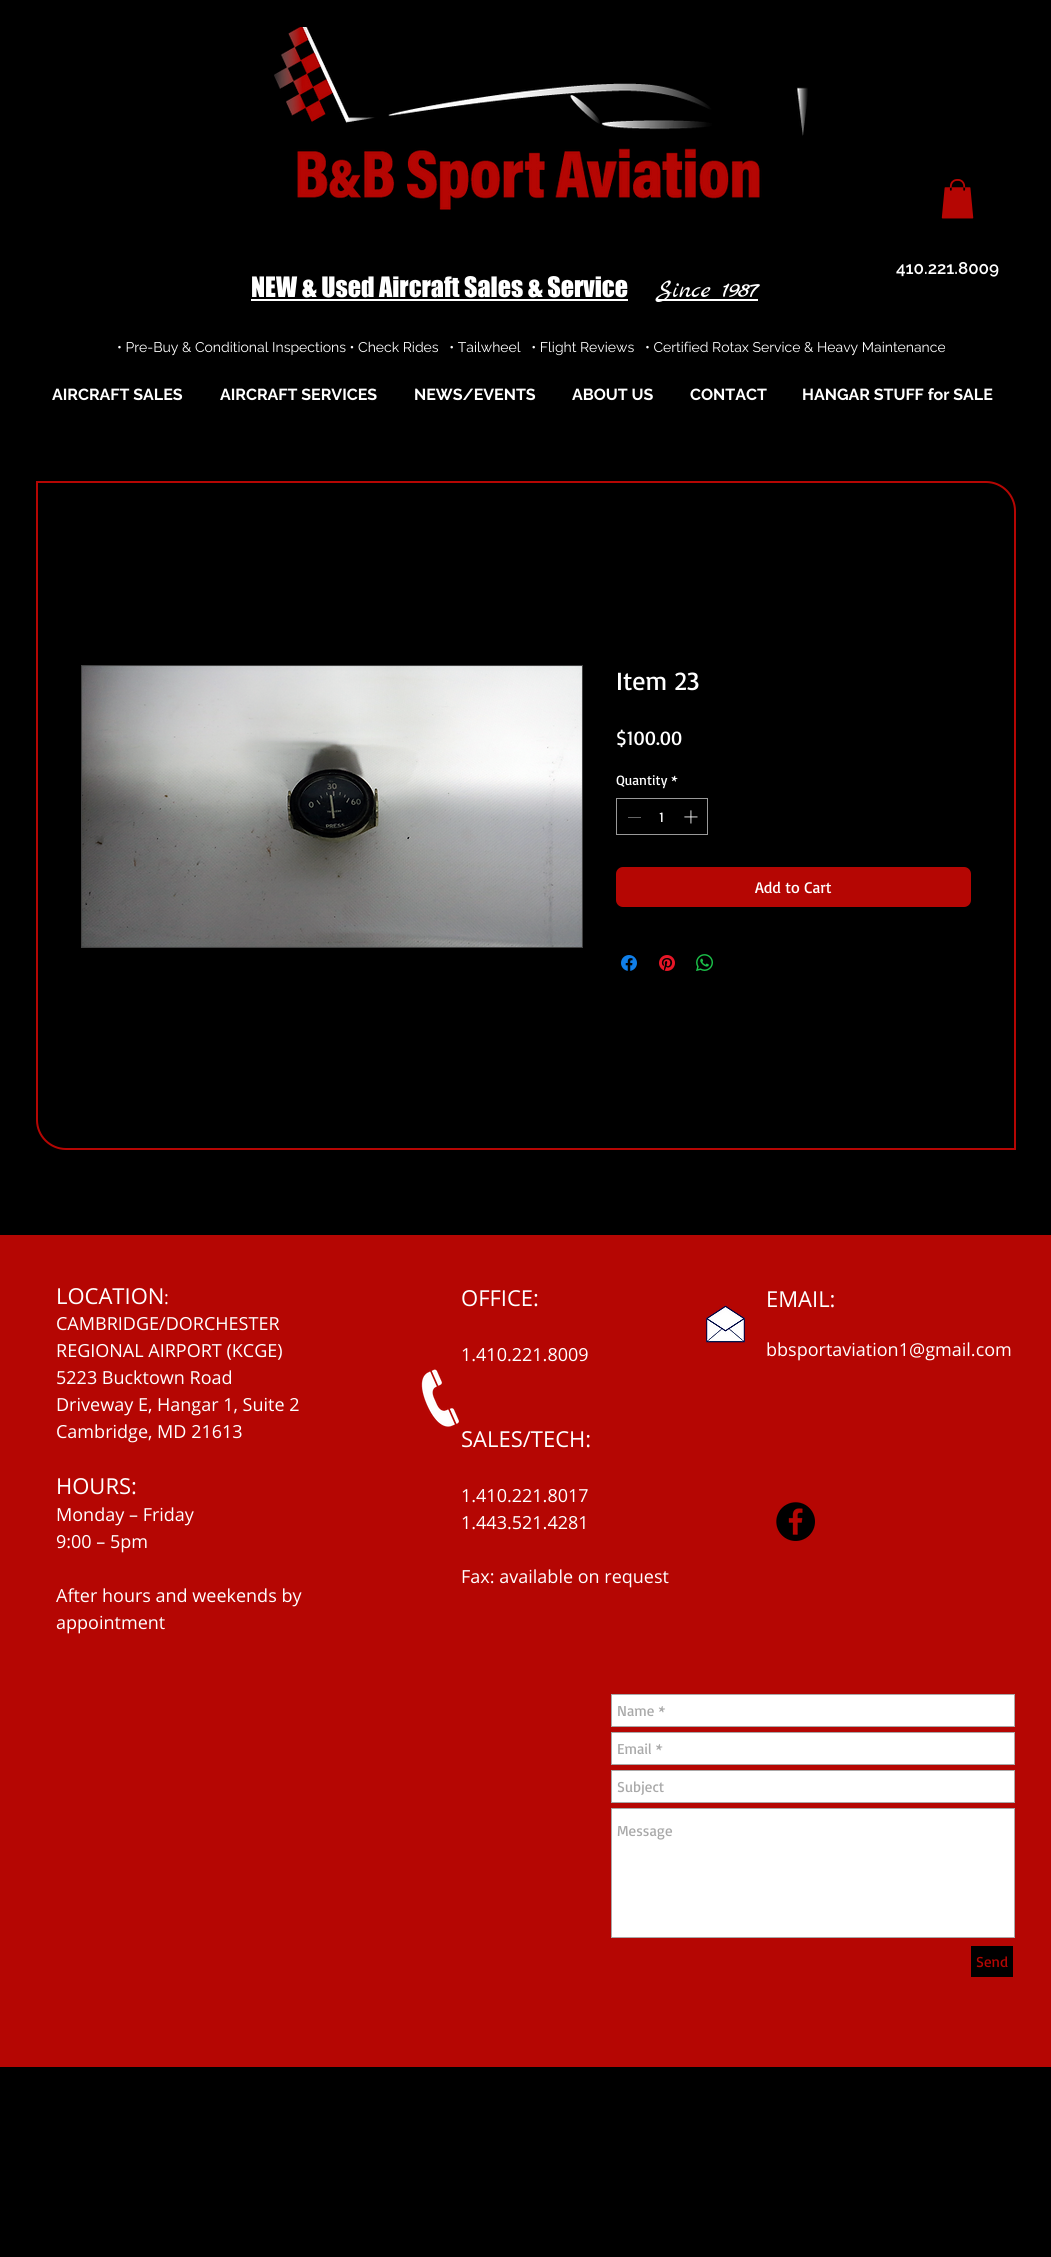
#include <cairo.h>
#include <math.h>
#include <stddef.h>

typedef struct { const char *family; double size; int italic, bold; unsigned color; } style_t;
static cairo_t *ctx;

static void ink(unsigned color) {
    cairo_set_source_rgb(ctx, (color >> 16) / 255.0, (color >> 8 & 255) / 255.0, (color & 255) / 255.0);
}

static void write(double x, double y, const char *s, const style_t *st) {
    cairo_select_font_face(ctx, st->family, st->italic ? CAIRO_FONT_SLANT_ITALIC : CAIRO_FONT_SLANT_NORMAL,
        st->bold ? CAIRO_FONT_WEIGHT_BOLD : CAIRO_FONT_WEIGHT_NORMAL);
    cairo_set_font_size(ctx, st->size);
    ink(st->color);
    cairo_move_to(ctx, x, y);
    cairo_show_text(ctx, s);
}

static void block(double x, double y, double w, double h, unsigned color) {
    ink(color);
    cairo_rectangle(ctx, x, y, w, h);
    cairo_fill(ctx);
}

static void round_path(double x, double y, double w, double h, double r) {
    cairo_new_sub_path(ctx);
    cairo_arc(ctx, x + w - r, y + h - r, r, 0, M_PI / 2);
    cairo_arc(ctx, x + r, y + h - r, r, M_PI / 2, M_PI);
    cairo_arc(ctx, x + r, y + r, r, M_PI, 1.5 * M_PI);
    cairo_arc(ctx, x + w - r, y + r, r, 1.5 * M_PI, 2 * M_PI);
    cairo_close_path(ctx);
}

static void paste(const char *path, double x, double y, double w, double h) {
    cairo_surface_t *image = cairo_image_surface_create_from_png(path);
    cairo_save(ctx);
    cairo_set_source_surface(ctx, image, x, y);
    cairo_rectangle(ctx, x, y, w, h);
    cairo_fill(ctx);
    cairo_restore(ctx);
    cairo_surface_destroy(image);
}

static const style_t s1 = {"Raleway SemiBold", 17, 0, 0, 0xffffff};
static const style_t s2 = {"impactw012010", 26, 0, 0, 0xffffff};
static const style_t s3 = {"Marck Script", 26, 0, 0, 0xffffff};
static const style_t s4 = {"Raleway", 14, 0, 0, 0xffffff};
static const style_t s5 = {"Raleway", 16, 0, 1, 0xffffff};
static const style_t s6 = {"Basic", 26, 0, 0, 0xffffff};
static const style_t s7 = {"Basic", 20, 0, 0, 0xffffff};
static const style_t s8 = {"Basic", 14, 0, 0, 0xffffff};
static const style_t s9 = {"Basic", 16, 0, 0, 0xffffff};
static const style_t s10 = {"Open Sans", 22, 0, 0, 0xffffff};
static const style_t s11 = {"Open Sans", 18, 0, 0, 0xffffff};
static const style_t s12 = {"Basic", 15, 0, 0, 0xa9a9a9};
static const style_t s13 = {"Basic", 15, 0, 0, 0xb50603};

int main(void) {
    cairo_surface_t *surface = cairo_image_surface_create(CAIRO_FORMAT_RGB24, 1051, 2257);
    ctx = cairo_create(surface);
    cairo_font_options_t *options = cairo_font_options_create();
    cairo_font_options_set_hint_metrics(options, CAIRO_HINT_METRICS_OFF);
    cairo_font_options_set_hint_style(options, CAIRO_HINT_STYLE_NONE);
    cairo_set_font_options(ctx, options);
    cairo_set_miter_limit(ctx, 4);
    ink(0x000000);
    cairo_paint(ctx);
    paste("pic1.png", 274, 27, 534, 183);
    paste("pic2.png", 941, 179, 33, 40);
    write(896, 274, "410.221.8009", &s1);
    write(251, 297, "NEW & Used Aircraft Sales & Service", &s2);
    block(251, 299, 377, 2, 0xffffff);
    block(656, 299, 102, 2, 0xffffff);
    write(656, 297, "Since 1987", &s3);
    write(117, 352, "• Pre-Buy & Conditional Inspections • Check Rides   • Tailwheel   • Flight Reviews   • Certified Rotax Service & Heavy Maintenance", &s4);
    write(52, 400, "AIRCRAFT SALES", &s5);
    write(220, 400, "AIRCRAFT SERVICES", &s5);
    write(414, 400, "NEWS/EVENTS", &s5);
    write(572, 400, "ABOUT US", &s5);
    write(690, 400, "CONTACT", &s5);
    write(802, 400, "HANGAR STUFF for SALE", &s5);
    cairo_new_path(ctx);
    cairo_move_to(ctx, 37, 482);
    cairo_line_to(ctx, 986, 482);
    cairo_curve_to(ctx, 1002, 482, 1015, 495, 1015, 511);
    cairo_line_to(ctx, 1015, 1149);
    cairo_line_to(ctx, 66, 1149);
    cairo_curve_to(ctx, 50, 1149, 37, 1136, 37, 1120);
    cairo_close_path(ctx);
    ink(0xb50603);
    cairo_stroke(ctx);
    cairo_rectangle(ctx, 81.5, 665.5, 501, 282);
    ink(0x424242);
    cairo_set_line_width(ctx, 1);
    cairo_stroke(ctx);
    paste("pic3.png", 82, 666, 500, 281);
    write(616, 690, "Item 23", &s6);
    write(616, 745, "$100.00", &s7);
    write(616, 785, "Quantity *", &s8);
    cairo_rectangle(ctx, 616.5, 798.5, 91, 36);
    ink(0x999999);
    cairo_stroke(ctx);
    block(628, 817, 13, 1, 0x646464);
    write(659, 822, "1", &s8);
    paste("pic4.png", 684, 810, 14, 14);
    ink(0xb50603);
    round_path(616, 867, 355, 40, 7);
    cairo_fill(ctx);
    write(755, 893, "Add to Cart", &s9);
    paste("pic5.png", 621, 955, 16, 16);
    paste("pic6.png", 659, 955, 16, 16);
    paste("pic7.png", 696, 954, 17, 17);
    block(0, 1235, 1051, 832, 0xb50603);
    write(56, 1304, "LOCATION", &s10);
    write(164, 1304, ":", &s11);
    write(56, 1330, "CAMBRIDGE/DORCHESTER", &s11);
    write(56, 1357, "REGIONAL AIRPORT (KCGE)", &s11);
    write(56, 1384, "5223 Bucktown Road", &s11);
    write(56, 1411, "Driveway E, Hangar 1, Suite 2", &s11);
    write(56, 1438, "Cambridge, MD 21613", &s11);
    write(56, 1494, "HOURS:", &s10);
    write(56, 1521, "Monday – Friday", &s11);
    write(56, 1548, "9:00 – 5pm", &s11);
    write(56, 1602, "After hours and weekends by", &s11);
    write(56, 1629, "appointment", &s11);
    write(461, 1306, "OFFICE:", &s10);
    write(461, 1361, "1.410.221.8009", &s11);
    write(461, 1447, "SALES/TECH:", &s10);
    write(461, 1502, "1.410.221.8017", &s11);
    write(461, 1529, "1.443.521.4281", &s11);
    write(461, 1583, "Fax: available on request", &s11);
    paste("pic8.png", 706, 1305, 39, 38);
    write(766, 1307, "EMAIL:", &s10);
    write(766, 1356, "bbsportaviation1@gmail.com", &s11);
    paste("pic9.png", 421, 1369, 38, 58);
    paste("pic10.png", 776, 1502, 39, 39);
    cairo_rectangle(ctx, 611.5, 1694.5, 403, 32);
    cairo_fill_preserve(ctx);
    ink(0xaaa8a8);
    cairo_stroke(ctx);
    write(617, 1716, "Name *", &s12);
    ink(0xffffff);
    cairo_rectangle(ctx, 611.5, 1732.5, 403, 32);
    cairo_fill_preserve(ctx);
    ink(0xaaa8a8);
    cairo_stroke(ctx);
    write(617, 1754, "Email *", &s12);
    ink(0xffffff);
    cairo_rectangle(ctx, 611.5, 1770.5, 403, 32);
    cairo_fill_preserve(ctx);
    ink(0xaaa8a8);
    cairo_stroke(ctx);
    write(617, 1792, "Subject", &s12);
    ink(0xffffff);
    cairo_rectangle(ctx, 611.5, 1808.5, 403, 129);
    cairo_fill_preserve(ctx);
    ink(0xaaa8a8);
    cairo_stroke(ctx);
    write(617, 1836, "Message", &s12);
    block(971, 1946, 42, 31, 0x000000);
    write(976, 1967, "Send", &s13);
    cairo_surface_write_to_png(surface, "screenshot.png");
    cairo_font_options_destroy(options);
    cairo_destroy(ctx);
    cairo_surface_destroy(surface);
    return 0;
}
